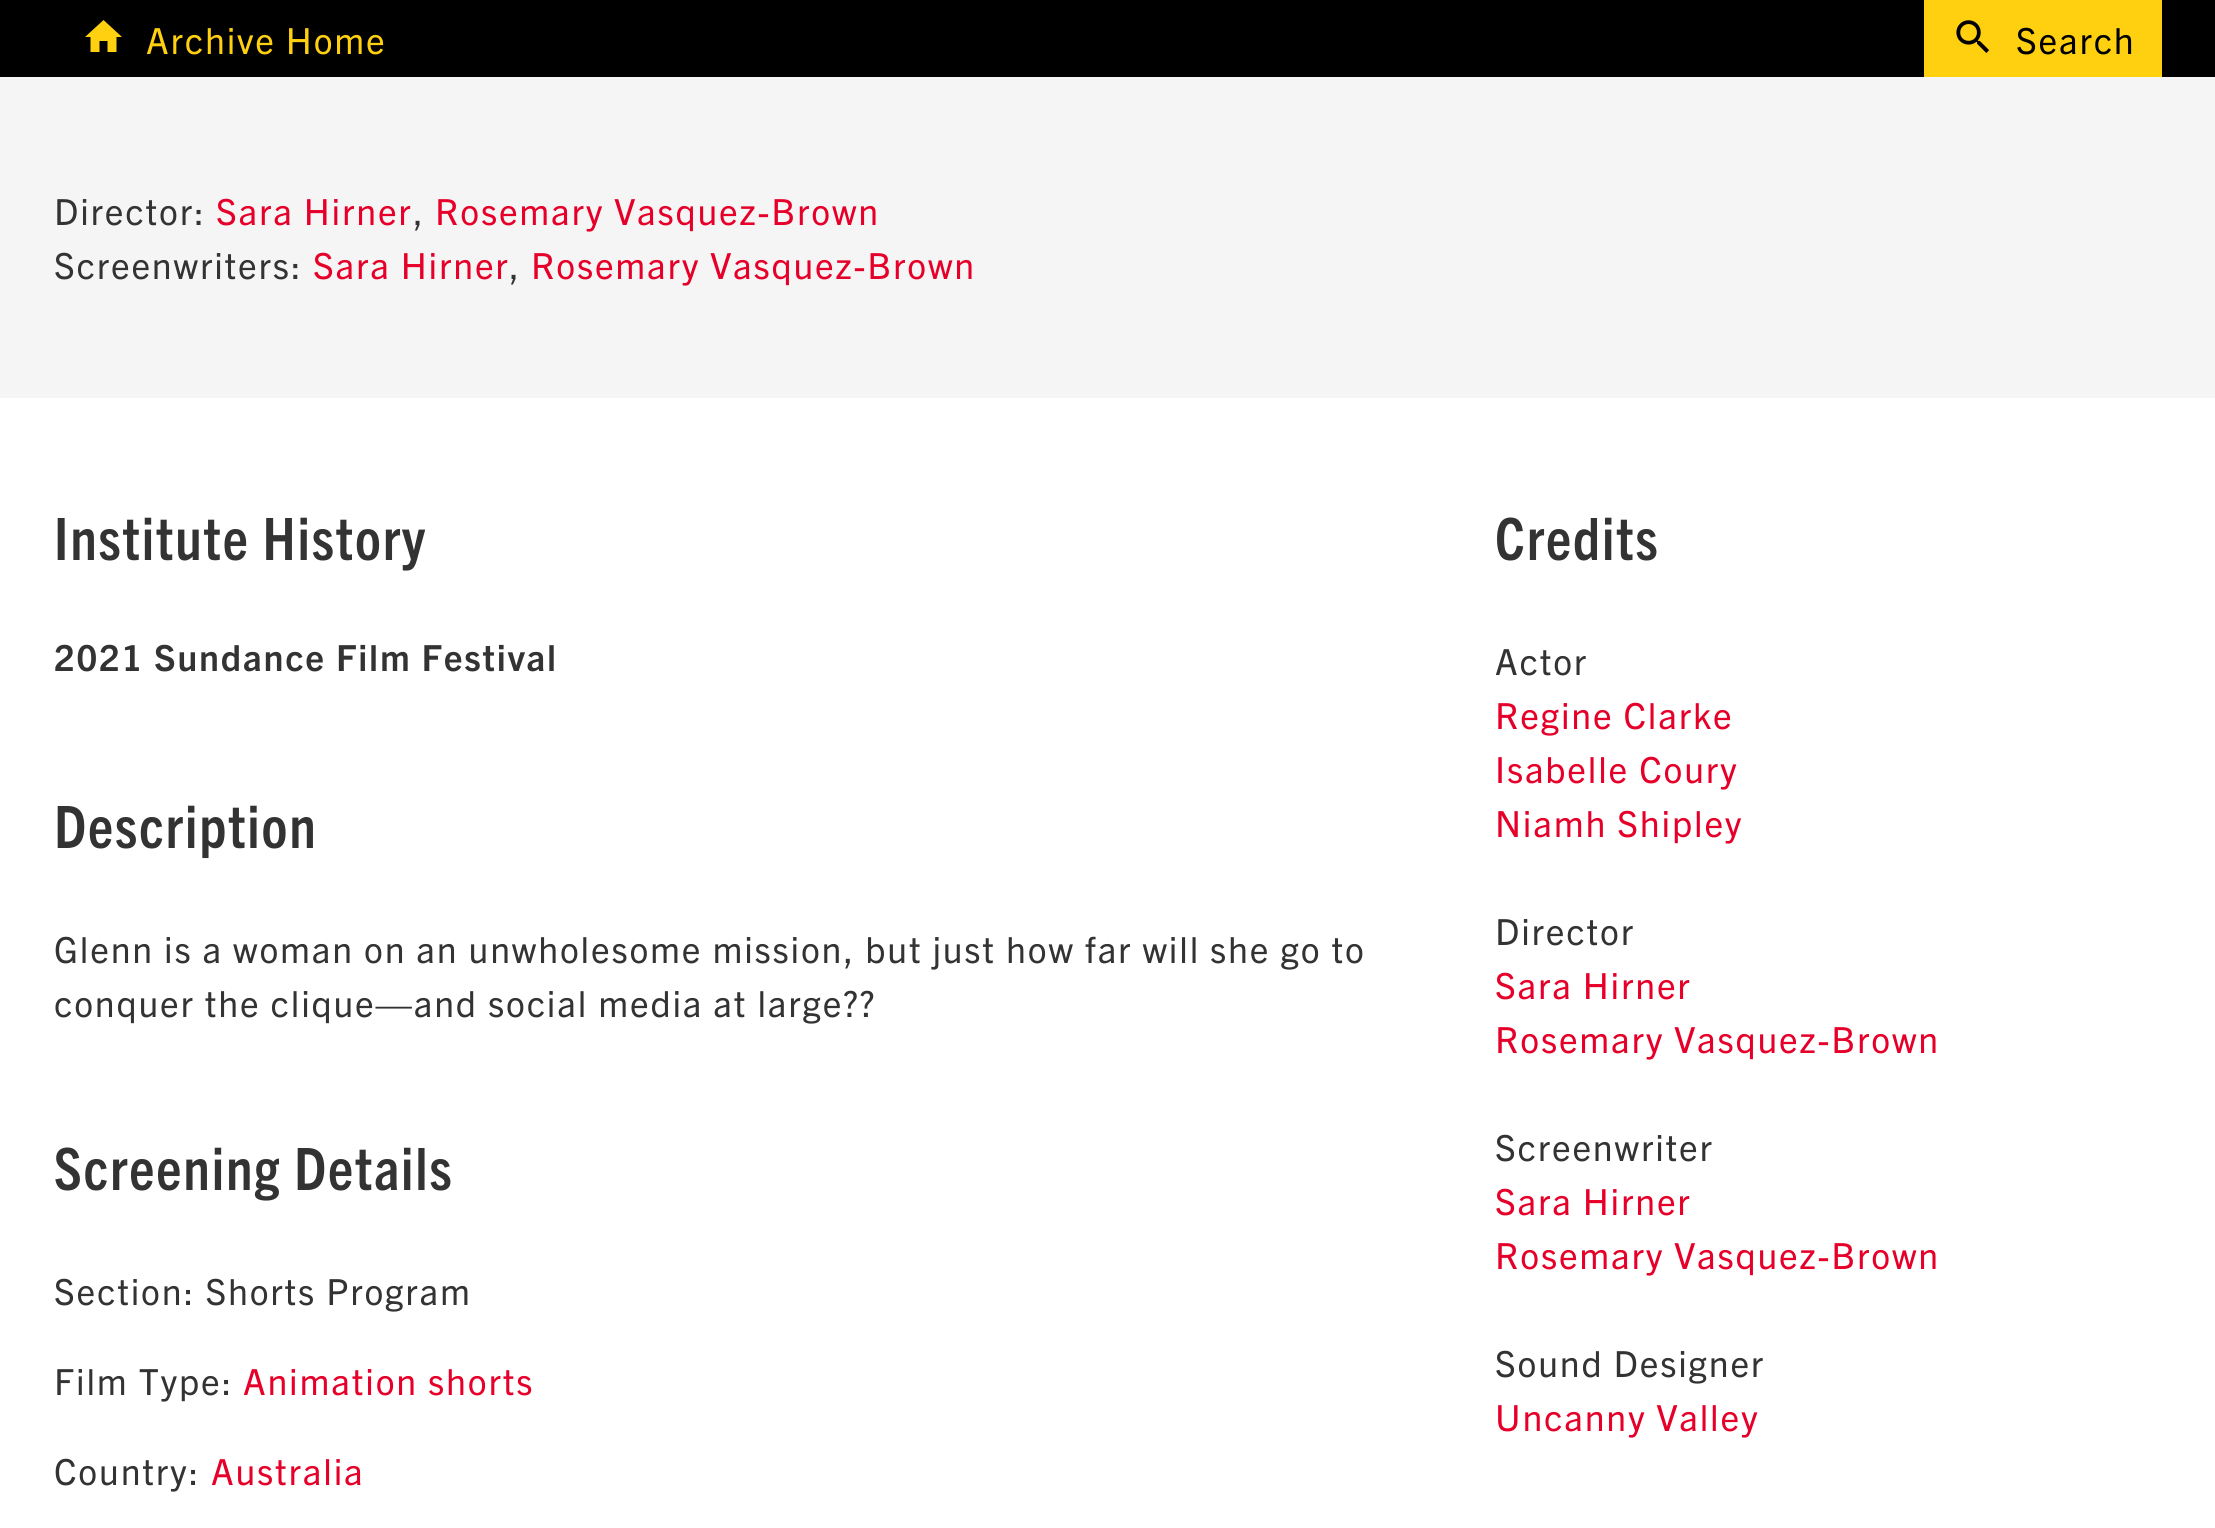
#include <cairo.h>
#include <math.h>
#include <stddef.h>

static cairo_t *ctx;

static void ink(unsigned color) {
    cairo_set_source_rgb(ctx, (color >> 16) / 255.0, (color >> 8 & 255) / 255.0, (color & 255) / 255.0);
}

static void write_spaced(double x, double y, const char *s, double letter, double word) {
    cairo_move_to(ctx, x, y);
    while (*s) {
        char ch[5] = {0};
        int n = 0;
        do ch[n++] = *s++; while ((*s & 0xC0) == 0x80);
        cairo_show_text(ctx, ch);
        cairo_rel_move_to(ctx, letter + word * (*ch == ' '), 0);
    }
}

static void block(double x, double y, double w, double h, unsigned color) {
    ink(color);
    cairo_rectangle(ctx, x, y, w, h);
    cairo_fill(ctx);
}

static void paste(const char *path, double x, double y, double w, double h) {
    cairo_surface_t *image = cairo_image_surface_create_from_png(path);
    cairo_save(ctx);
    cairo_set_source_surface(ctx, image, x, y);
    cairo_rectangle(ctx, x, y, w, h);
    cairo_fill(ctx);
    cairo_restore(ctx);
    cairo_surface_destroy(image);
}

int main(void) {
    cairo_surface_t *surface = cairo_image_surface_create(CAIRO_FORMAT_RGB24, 2215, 1528);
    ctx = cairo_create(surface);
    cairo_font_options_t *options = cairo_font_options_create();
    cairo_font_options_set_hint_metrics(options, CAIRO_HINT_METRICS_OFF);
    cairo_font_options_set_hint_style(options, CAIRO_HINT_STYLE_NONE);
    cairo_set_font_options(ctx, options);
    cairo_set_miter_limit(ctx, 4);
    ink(0xffffff);
    cairo_paint(ctx);
    block(0, 0, 2215, 77, 0x000000);
    ink(0xffd00f);
    cairo_new_path(ctx);
    cairo_move_to(ctx, 99.5, 52);
    cairo_line_to(ctx, 99.5, 41);
    cairo_line_to(ctx, 107.5, 41);
    cairo_line_to(ctx, 107.5, 52);
    cairo_line_to(ctx, 116.5, 52);
    cairo_line_to(ctx, 116.5, 37);
    cairo_line_to(ctx, 122, 37);
    cairo_line_to(ctx, 103.5, 20);
    cairo_line_to(ctx, 85, 37);
    cairo_line_to(ctx, 90.5, 37);
    cairo_line_to(ctx, 90.5, 52);
    cairo_close_path(ctx);
    cairo_fill(ctx);
    cairo_select_font_face(ctx, "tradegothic", CAIRO_FONT_SLANT_NORMAL, CAIRO_FONT_WEIGHT_NORMAL);
    cairo_set_font_size(ctx, 36);
    write_spaced(146, 54, "Archive Home", 1.8, 0);
    block(1924, 0, 238, 77, 0xffd00f);
    paste("pic1.png", 1956, 20, 34, 33);
    ink(0x000000);
    write_spaced(2016, 54, "Search", 1.8, 0);
    block(0, 77, 2215, 321, 0xf5f5f5);
    ink(0x333333);
    write_spaced(54, 225, "Director:", 1.8, 0);
    ink(0xe60029);
    write_spaced(216, 225, "Sara Hirner", 1.8, 0);
    ink(0x333333);
    write_spaced(413, 225, ",", 1.8, 0);
    ink(0xe60029);
    write_spaced(435, 225, "Rosemary Vasquez-Brown", 1.8, 0);
    ink(0x333333);
    write_spaced(54, 279, "Screenwriters:", 1.8, 0);
    ink(0xe60029);
    write_spaced(313, 279, "Sara Hirner", 1.8, 0);
    ink(0x333333);
    write_spaced(509, 279, ",", 1.8, 0);
    ink(0xe60029);
    write_spaced(531, 279, "Rosemary Vasquez-Brown", 1.8, 0);
    cairo_select_font_face(ctx, "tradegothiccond", CAIRO_FONT_SLANT_NORMAL, CAIRO_FONT_WEIGHT_NORMAL);
    cairo_set_font_size(ctx, 58.5);
    ink(0x333333);
    write_spaced(54, 560, "Institute History", 1.8, 0);
    cairo_select_font_face(ctx, "tradegothic", CAIRO_FONT_SLANT_NORMAL, CAIRO_FONT_WEIGHT_BOLD);
    cairo_set_font_size(ctx, 36);
    write_spaced(54, 671, "2021 Sundance Film Festival", 1.8, 0);
    cairo_select_font_face(ctx, "tradegothiccond", CAIRO_FONT_SLANT_NORMAL, CAIRO_FONT_WEIGHT_NORMAL);
    cairo_set_font_size(ctx, 58.5);
    write_spaced(54, 848, "Description", 1.8, 0);
    cairo_select_font_face(ctx, "tradegothic", CAIRO_FONT_SLANT_NORMAL, CAIRO_FONT_WEIGHT_NORMAL);
    cairo_set_font_size(ctx, 36);
    write_spaced(54, 963, "Glenn is a woman on an unwholesome mission, but just how far will she go to", 1.8, 0);
    write_spaced(54, 1017, "conquer the clique—and social media at large?\077", 1.8, 0);
    cairo_select_font_face(ctx, "tradegothiccond", CAIRO_FONT_SLANT_NORMAL, CAIRO_FONT_WEIGHT_NORMAL);
    cairo_set_font_size(ctx, 58.5);
    write_spaced(54, 1190, "Screening Details", 1.8, 0);
    cairo_select_font_face(ctx, "tradegothic", CAIRO_FONT_SLANT_NORMAL, CAIRO_FONT_WEIGHT_NORMAL);
    cairo_set_font_size(ctx, 36);
    write_spaced(54, 1305, "Section: Shorts Program", 1.8, 0);
    write_spaced(54, 1395, "Film Type:", 1.8, 0);
    ink(0xe60029);
    write_spaced(243, 1395, "Animation shorts", 1.8, 0);
    ink(0x333333);
    write_spaced(54, 1485, "Country:", 1.8, 0);
    ink(0xe60029);
    write_spaced(211, 1485, "Australia", 1.8, 0);
    cairo_select_font_face(ctx, "tradegothiccond", CAIRO_FONT_SLANT_NORMAL, CAIRO_FONT_WEIGHT_NORMAL);
    cairo_set_font_size(ctx, 58.5);
    ink(0x333333);
    write_spaced(1495, 560, "Credits", 1.8, 0);
    cairo_select_font_face(ctx, "tradegothic", CAIRO_FONT_SLANT_NORMAL, CAIRO_FONT_WEIGHT_NORMAL);
    cairo_set_font_size(ctx, 36);
    write_spaced(1495, 675, "Actor", 1.8, 0);
    ink(0xe60029);
    write_spaced(1495, 729, "Regine Clarke", 1.8, 0);
    write_spaced(1495, 783, "Isabelle Coury", 1.8, 0);
    write_spaced(1495, 837, "Niamh Shipley", 1.8, 0);
    ink(0x333333);
    write_spaced(1495, 945, "Director", 1.8, 0);
    ink(0xe60029);
    write_spaced(1495, 999, "Sara Hirner", 1.8, 0);
    write_spaced(1495, 1053, "Rosemary Vasquez-Brown", 1.8, 0);
    ink(0x333333);
    write_spaced(1495, 1161, "Screenwriter", 1.8, 0);
    ink(0xe60029);
    write_spaced(1495, 1215, "Sara Hirner", 1.8, 0);
    write_spaced(1495, 1269, "Rosemary Vasquez-Brown", 1.8, 0);
    ink(0x333333);
    write_spaced(1495, 1377, "Sound Designer", 1.8, 0);
    ink(0xe60029);
    write_spaced(1495, 1431, "Uncanny Valley", 1.8, 0);
    cairo_surface_write_to_png(surface, "screenshot.png");
    cairo_font_options_destroy(options);
    cairo_destroy(ctx);
    cairo_surface_destroy(surface);
    return 0;
}
